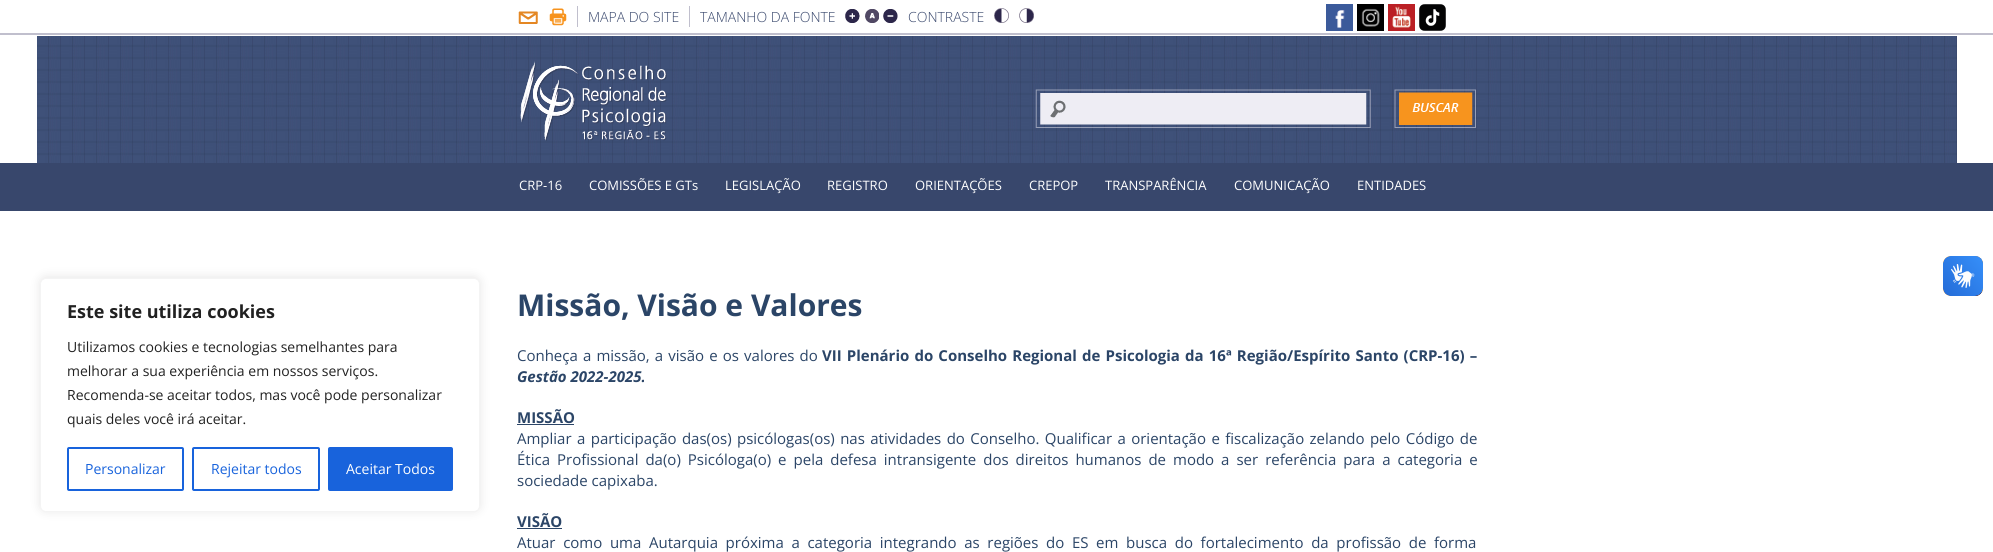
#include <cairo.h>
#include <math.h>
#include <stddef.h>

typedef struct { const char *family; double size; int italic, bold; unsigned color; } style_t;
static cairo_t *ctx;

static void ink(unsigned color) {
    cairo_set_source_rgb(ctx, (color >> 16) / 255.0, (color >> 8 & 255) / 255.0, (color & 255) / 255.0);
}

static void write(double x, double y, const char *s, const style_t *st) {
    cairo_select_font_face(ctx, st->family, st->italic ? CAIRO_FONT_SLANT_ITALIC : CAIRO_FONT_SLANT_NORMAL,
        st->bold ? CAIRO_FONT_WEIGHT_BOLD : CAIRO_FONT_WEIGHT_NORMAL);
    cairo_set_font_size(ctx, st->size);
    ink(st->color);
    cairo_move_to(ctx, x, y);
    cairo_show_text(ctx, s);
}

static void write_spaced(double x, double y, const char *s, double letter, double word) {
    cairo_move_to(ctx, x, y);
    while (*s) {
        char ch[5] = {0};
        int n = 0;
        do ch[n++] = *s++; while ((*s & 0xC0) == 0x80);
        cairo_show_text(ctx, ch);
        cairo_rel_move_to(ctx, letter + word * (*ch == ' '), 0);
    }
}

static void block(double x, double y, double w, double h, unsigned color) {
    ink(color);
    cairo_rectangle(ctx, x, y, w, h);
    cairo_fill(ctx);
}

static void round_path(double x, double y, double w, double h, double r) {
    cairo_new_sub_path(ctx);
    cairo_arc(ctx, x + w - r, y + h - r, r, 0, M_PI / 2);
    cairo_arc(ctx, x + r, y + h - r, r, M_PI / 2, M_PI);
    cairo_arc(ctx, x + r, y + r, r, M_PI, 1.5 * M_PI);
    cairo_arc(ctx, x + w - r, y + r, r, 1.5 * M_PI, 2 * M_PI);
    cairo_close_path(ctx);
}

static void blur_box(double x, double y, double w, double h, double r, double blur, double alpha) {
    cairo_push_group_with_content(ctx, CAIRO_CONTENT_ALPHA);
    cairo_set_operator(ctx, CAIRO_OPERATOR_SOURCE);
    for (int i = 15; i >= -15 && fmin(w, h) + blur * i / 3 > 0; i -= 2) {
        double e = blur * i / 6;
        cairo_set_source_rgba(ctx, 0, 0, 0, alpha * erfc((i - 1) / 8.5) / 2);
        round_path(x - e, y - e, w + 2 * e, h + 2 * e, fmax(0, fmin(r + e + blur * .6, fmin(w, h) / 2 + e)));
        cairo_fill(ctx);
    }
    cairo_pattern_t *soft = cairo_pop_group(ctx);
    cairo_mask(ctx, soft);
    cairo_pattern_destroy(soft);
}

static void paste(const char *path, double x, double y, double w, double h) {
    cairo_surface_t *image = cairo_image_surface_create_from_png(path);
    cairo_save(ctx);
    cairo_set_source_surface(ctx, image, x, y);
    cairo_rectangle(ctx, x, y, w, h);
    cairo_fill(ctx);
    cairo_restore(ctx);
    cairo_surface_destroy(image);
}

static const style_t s1 = {"Open Sans Light", 14, 0, 0, 0x38476c};
static const style_t s2 = {"Open Sans", 13, 0, 0, 0xffffff};
static const style_t s3 = {"Open Sans", 18, 0, 1, 0x212121};
static const style_t s4 = {"Open Sans", 14, 0, 0, 0x212121};
static const style_t s5 = {"Open Sans", 14, 0, 0, 0x1863dc};
static const style_t s6 = {"Open Sans", 14, 0, 0, 0xffffff};
static const style_t s7 = {"Open Sans", 30, 0, 1, 0x2b4567};
static const style_t s8 = {"Open Sans", 15, 1, 1, 0x2b4567};
static const style_t s9 = {"Open Sans", 15, 0, 1, 0x2b4567};
static const style_t s10 = {"Open Sans", 15, 0, 0, 0x2b4567};

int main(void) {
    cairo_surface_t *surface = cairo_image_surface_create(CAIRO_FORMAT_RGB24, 1993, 552);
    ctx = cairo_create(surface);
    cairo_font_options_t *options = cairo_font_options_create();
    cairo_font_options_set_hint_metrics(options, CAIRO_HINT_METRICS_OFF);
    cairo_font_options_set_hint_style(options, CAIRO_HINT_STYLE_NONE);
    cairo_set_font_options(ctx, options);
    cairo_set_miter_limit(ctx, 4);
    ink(0xffffff);
    cairo_paint(ctx);
    block(0, 33, 1993, 2, 0xc0bfcd);
    paste("pic1.png", 518, 11, 20, 13);
    paste("pic2.png", 549, 8, 18, 18);
    block(689, 6, 1, 21, 0xc0bfcd);
    block(577, 6, 1, 21, 0xc0bfcd);
    write(588, 22, "MAPA DO SITE", &s1);
    write(700, 22, "TAMANHO DA FONTE", &s1);
    paste("pic3.png", 845, 9, 15, 14);
    paste("pic4.png", 865, 9, 14, 14);
    paste("pic5.png", 883, 9, 15, 14);
    write(908, 22, "CONTRASTE", &s1);
    paste("pic6.png", 994, 8, 15, 15);
    paste("pic7.png", 1019, 8, 15, 15);
    paste("pic8.png", 1326, 4, 27, 27);
    paste("pic9.png", 1357, 4, 27, 27);
    paste("pic10.png", 1388, 4, 27, 27);
    paste("pic11.png", 1419, 4, 27, 27);
    paste("pic12.png", 37, 36, 1920, 127);
    paste("pic13.png", 520, 61, 147, 80);
    paste("pic14.png", 1035, 89, 336, 39);
    paste("pic15.png", 1394, 89, 82, 39);
    block(0, 163, 1993, 48, 0x38476c);
    write(519, 190, "CRP-16", &s2);
    write(589, 190, "COMISSÕES E GTs", &s2);
    write(725, 190, "LEGISLAÇÃO", &s2);
    write(827, 190, "REGISTRO", &s2);
    write(915, 190, "ORIENTAÇÕES", &s2);
    write(1029, 190, "CREPOP", &s2);
    write(1105, 190, "TRANSPARÊNCIA", &s2);
    write(1234, 190, "COMUNICAÇÃO", &s2);
    write(1357, 190, "ENTIDADES", &s2);
    ink(0xf7931d);
    round_path(1943, 256, 40, 40, 8);
    cairo_fill(ctx);
    paste("pic16.png", 1943, 256, 40, 40);
    paste("pic17.png", 1943, 256, 40, 40);
    ink(0xacabab);
    blur_box(40, 277, 440, 234, 6, 5, 0.3);
    ink(0xffffff);
    round_path(40.5, 278.5, 439, 233, 5.5);
    cairo_fill_preserve(ctx);
    ink(0xf4f4f4);
    cairo_set_line_width(ctx, 1);
    cairo_stroke(ctx);
    write(67, 318, "Este site utiliza cookies", &s3);
    write(67, 352, "Utilizamos cookies e tecnologias semelhantes para", &s4);
    write(67, 376, "melhorar a sua experiência em nossos serviços.", &s4);
    write(67, 400, "Recomenda-se aceitar todos, mas você pode personalizar", &s4);
    write(67, 424, "quais deles você irá aceitar.", &s4);
    round_path(68, 448, 115, 42, 1);
    ink(0x1863dc);
    cairo_set_line_width(ctx, 2);
    cairo_stroke(ctx);
    write(85, 474, "Personalizar", &s5);
    round_path(193, 448, 126, 42, 1);
    cairo_stroke(ctx);
    write(211, 474, "Rejeitar todos", &s5);
    round_path(329, 448, 123, 42, 1);
    cairo_fill_preserve(ctx);
    cairo_stroke(ctx);
    write(346, 474, "Aceitar Todos", &s6);
    write(517, 316, "Missão, Visão e Valores", &s7);
    cairo_select_font_face(ctx, "Open Sans", CAIRO_FONT_SLANT_NORMAL, CAIRO_FONT_WEIGHT_NORMAL);
    cairo_set_font_size(ctx, 15);
    write_spaced(517, 361, "Conheça a missão, a visão e os valores do", 0, 1.25);
    cairo_select_font_face(ctx, "Open Sans", CAIRO_FONT_SLANT_NORMAL, CAIRO_FONT_WEIGHT_BOLD);
    write_spaced(822, 361, "VII Plenário do Conselho Regional de Psicologia da 16ª Região/Espírito Santo (CRP-16) –", 0, 1.25);
    write(517, 382, "Gestão 2022-2025.", &s8);
    write(517, 423, "MISSÃO", &s9);
    block(517, 424, 57, 1, 0x2b4567);
    cairo_select_font_face(ctx, "Open Sans", CAIRO_FONT_SLANT_NORMAL, CAIRO_FONT_WEIGHT_NORMAL);
    write_spaced(517, 444, "Ampliar a participação das(os) psicólogas(os) nas atividades do Conselho. Qualificar a orientação e fiscalização zelando pelo Código de", 0, 1.5);
    write_spaced(517, 465, "Ética Profissional da(o) Psicóloga(o) e pela defesa intransigente dos direitos humanos de modo a ser referência para a categoria e", 0, 3.1);
    write(517, 486, "sociedade capixaba.", &s10);
    write(517, 527, "VISÃO", &s9);
    block(517, 528, 45, 1, 0x2b4567);
    cairo_select_font_face(ctx, "Open Sans", CAIRO_FONT_SLANT_NORMAL, CAIRO_FONT_WEIGHT_NORMAL);
    write_spaced(517, 548, "Atuar como uma Autarquia próxima a categoria integrando as regiões do ES em busca do fortalecimento da profissão de forma", 0, 3.75);
    cairo_surface_write_to_png(surface, "screenshot.png");
    cairo_font_options_destroy(options);
    cairo_destroy(ctx);
    cairo_surface_destroy(surface);
    return 0;
}
